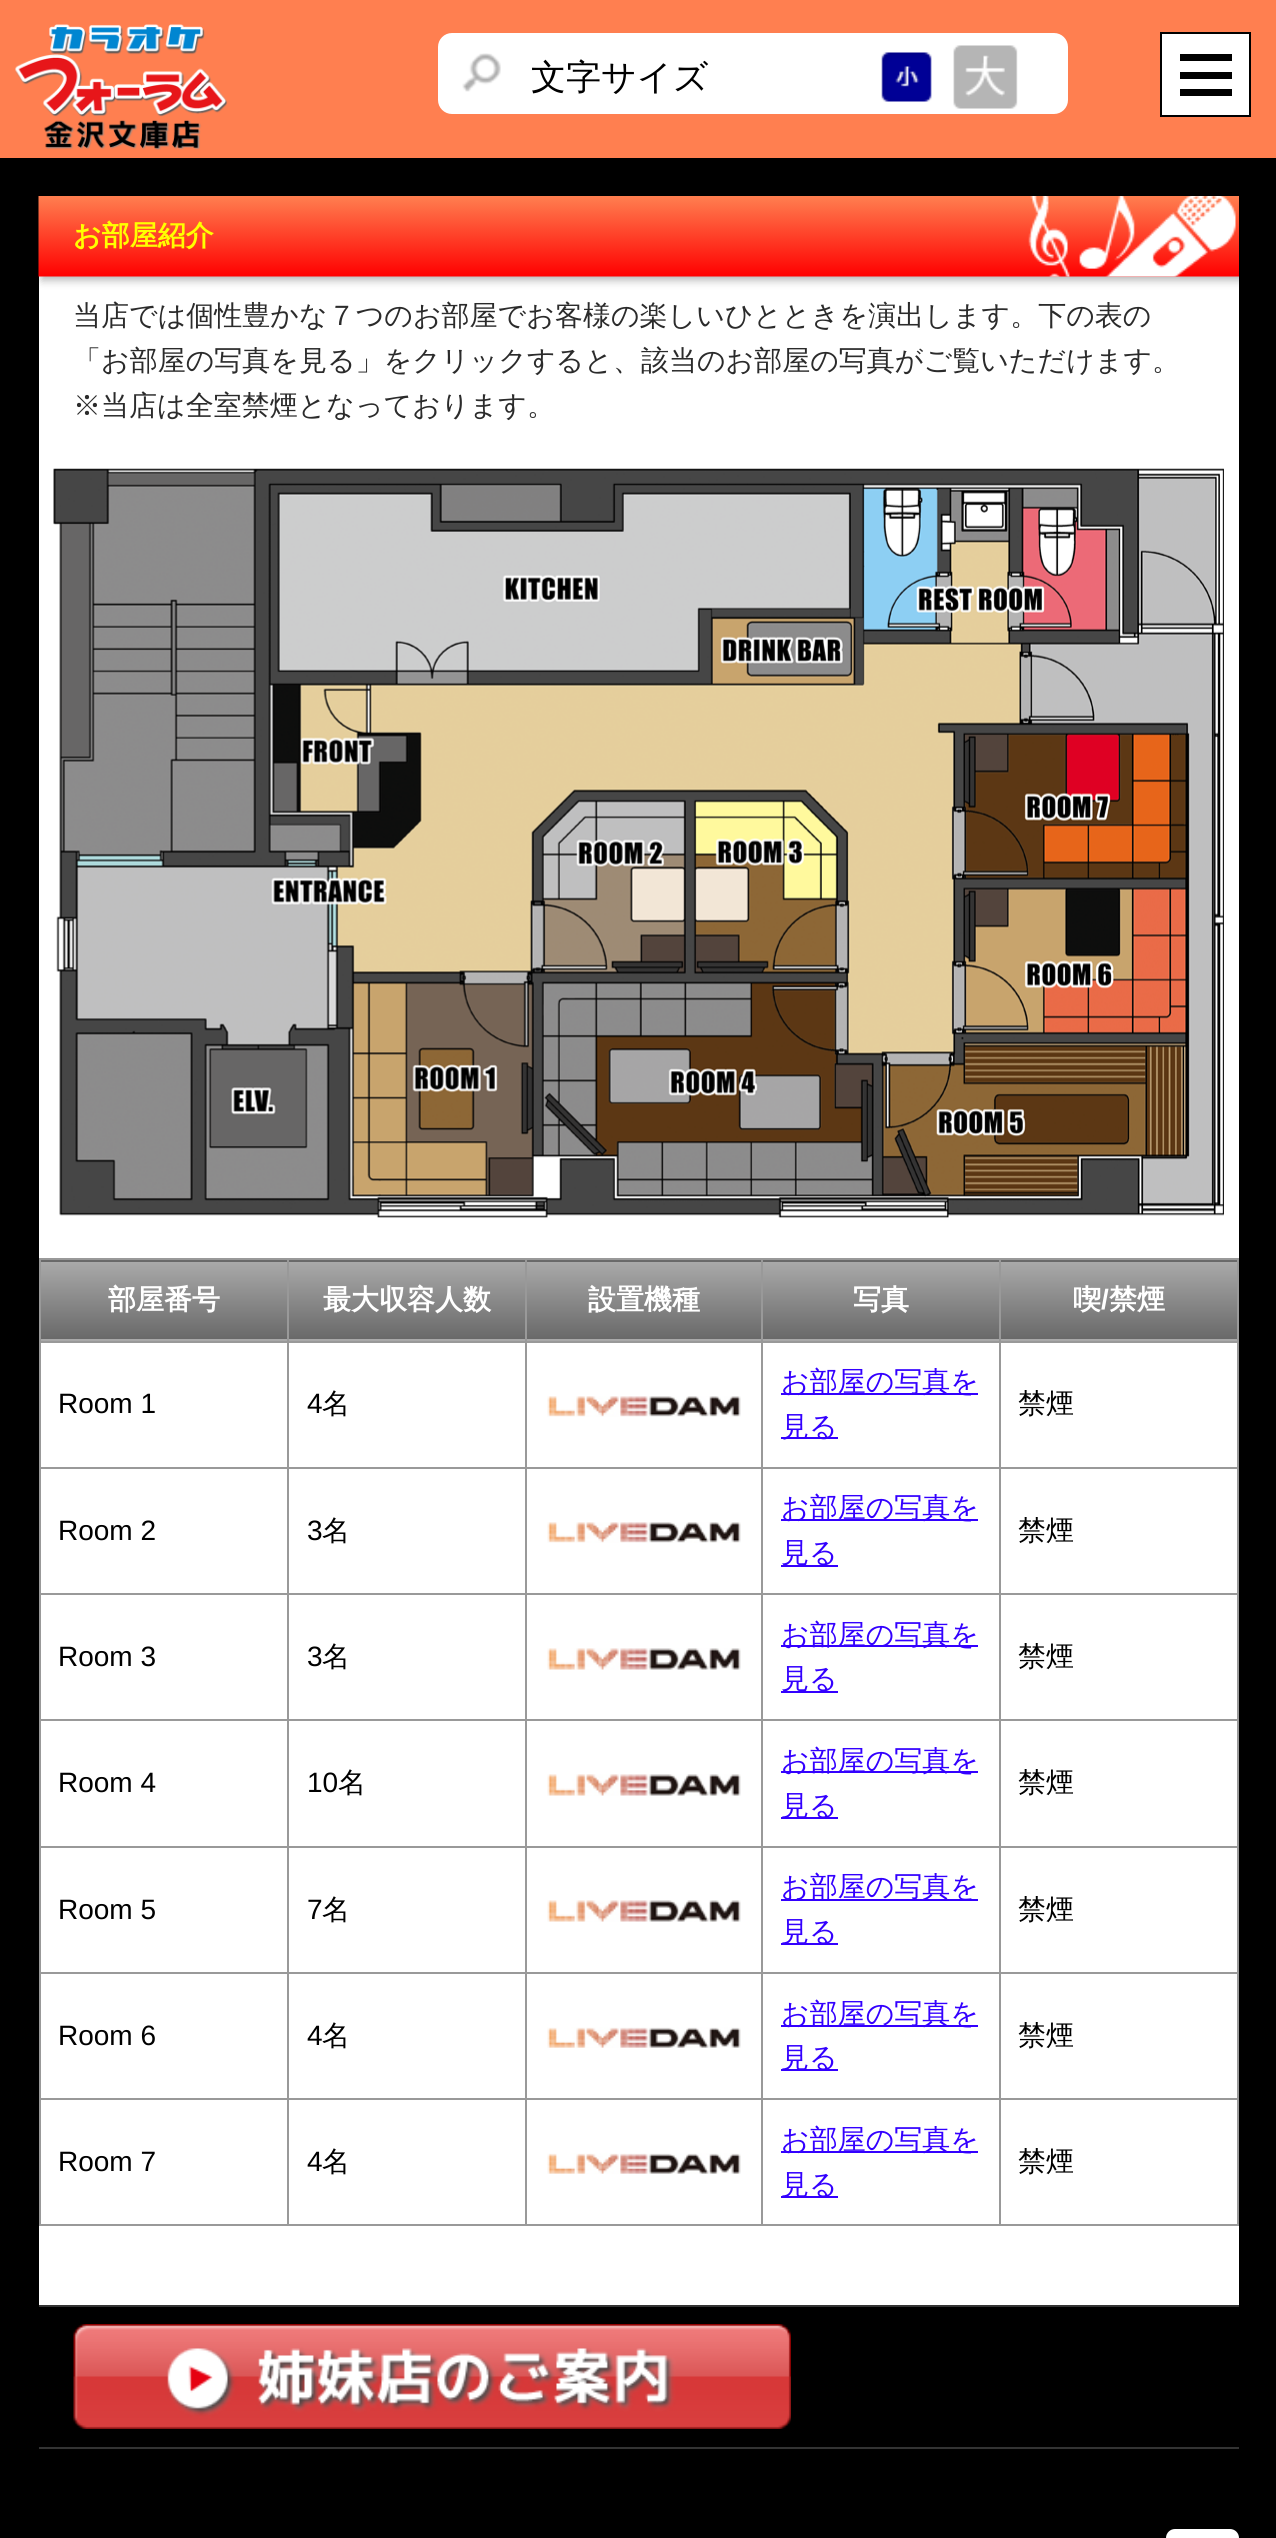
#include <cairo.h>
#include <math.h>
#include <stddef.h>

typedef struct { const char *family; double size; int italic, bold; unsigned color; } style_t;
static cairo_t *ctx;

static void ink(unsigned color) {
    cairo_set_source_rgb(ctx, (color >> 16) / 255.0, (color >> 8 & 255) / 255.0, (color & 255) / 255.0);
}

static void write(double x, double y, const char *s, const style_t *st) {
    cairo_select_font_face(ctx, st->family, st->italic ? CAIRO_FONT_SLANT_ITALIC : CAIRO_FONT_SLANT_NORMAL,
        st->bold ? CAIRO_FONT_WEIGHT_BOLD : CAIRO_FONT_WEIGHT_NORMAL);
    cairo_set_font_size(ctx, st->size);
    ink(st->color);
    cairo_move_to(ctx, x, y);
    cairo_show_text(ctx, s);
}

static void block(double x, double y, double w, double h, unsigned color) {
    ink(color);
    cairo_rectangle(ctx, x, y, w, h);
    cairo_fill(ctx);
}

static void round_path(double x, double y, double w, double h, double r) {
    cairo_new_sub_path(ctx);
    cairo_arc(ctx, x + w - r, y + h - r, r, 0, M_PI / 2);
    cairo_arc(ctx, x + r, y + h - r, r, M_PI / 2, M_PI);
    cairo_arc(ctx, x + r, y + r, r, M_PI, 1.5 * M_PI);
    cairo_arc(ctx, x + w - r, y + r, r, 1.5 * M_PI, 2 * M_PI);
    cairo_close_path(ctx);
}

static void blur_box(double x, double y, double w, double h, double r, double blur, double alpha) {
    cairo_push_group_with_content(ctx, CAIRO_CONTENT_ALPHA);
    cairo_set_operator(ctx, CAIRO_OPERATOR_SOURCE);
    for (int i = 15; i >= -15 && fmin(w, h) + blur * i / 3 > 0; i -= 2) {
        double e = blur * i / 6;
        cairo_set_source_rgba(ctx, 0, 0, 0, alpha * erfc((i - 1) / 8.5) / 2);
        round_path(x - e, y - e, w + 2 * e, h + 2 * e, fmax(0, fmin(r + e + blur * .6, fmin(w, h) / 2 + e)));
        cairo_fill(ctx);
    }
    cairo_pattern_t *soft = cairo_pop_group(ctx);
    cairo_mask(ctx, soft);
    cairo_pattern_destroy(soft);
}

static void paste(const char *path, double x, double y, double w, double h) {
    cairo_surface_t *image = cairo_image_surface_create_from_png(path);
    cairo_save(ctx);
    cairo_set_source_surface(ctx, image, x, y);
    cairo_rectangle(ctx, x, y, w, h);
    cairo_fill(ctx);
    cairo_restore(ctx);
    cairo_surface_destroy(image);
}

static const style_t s1 = {"WenQuanYi Zen Hei Medium", 35, 0, 0, 0x000000};
static const style_t s2 = {"WenQuanYi Zen Hei", 28, 0, 1, 0xffff00};
static const style_t s3 = {"WenQuanYi Zen Hei Medium", 28, 0, 0, 0x2b2b2b};
static const style_t s4 = {"WenQuanYi Zen Hei", 28, 0, 1, 0xffffff};
static const style_t s5 = {"Liberation Sans", 28, 0, 1, 0xffffff};
static const style_t s6 = {"Liberation Sans", 28, 0, 0, 0x000000};
static const style_t s7 = {"WenQuanYi Zen Hei Medium", 28, 0, 0, 0x000000};
static const style_t s8 = {"WenQuanYi Zen Hei Medium", 28, 0, 0, 0x3300ff};

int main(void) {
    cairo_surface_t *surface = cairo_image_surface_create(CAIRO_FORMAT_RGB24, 1276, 2538);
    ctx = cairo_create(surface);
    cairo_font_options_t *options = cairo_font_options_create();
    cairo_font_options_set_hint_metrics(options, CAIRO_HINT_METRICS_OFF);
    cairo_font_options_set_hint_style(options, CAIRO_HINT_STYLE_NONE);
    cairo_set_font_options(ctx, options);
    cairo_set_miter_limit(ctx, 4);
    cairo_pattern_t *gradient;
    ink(0x000000);
    cairo_paint(ctx);
    block(39, 2305, 1200, 2, 0x333333);
    block(39, 2447, 1200, 2, 0x333333);
    block(0, 0, 1276, 158, 0xff7f50);
    paste("pic1.png", 15, 24, 213, 126);
    ink(0xffffff);
    round_path(438, 33, 630, 81, 14);
    cairo_fill(ctx);
    paste("pic2.png", 462, 53, 39, 39);
    write(531, 89, "文字サイズ", &s1);
    paste("pic3.png", 881, 52, 51, 50);
    paste("pic4.png", 953, 45, 65, 64);
    paste("pic5.png", 73, 2324, 718, 105);
    block(39, 276, 1200, 2029, 0xffffff);
    ink(0x000000);
    blur_box(42, 200, 1201, 80, 0, 4.5, 0.3);
    paste("pic6.png", 38, 196, 1201, 81);
    write(73, 245, "お部屋紹介", &s2);
    write(73, 325, "当店では個性豊かな７つのお部屋でお客様の楽しいひとときを演出します。下の表の", &s3);
    write(73, 370, "「お部屋の写真を見る」をクリックすると、該当のお部屋の写真がご覧いただけます。", &s3);
    write(73, 415, "※当店は全室禁煙となっております。", &s3);
    paste("pic7.png", 53, 468, 1171, 750);
    gradient = cairo_pattern_create_linear(164, 1185, 164, 1262);
    cairo_pattern_add_color_stop_rgba(gradient, 0, 0.663, 0.663, 0.663, 1);
    cairo_pattern_add_color_stop_rgba(gradient, 1, 0.412, 0.412, 0.412, 1);
    cairo_set_source(ctx, gradient);
    cairo_pattern_destroy(gradient);
    cairo_rectangle(ctx, 39, 1260, 250, 2);
    cairo_fill(ctx);
    gradient = cairo_pattern_create_linear(164, 1262, 164, 1339);
    cairo_pattern_add_color_stop_rgba(gradient, 0, 0.663, 0.663, 0.663, 1);
    cairo_pattern_add_color_stop_rgba(gradient, 1, 0.412, 0.412, 0.412, 1);
    cairo_set_source(ctx, gradient);
    cairo_pattern_destroy(gradient);
    cairo_rectangle(ctx, 41, 1262, 246, 77);
    cairo_fill(ctx);
    gradient = cairo_pattern_create_linear(164, 1339, 164, 1416);
    cairo_pattern_add_color_stop_rgba(gradient, 0, 0.663, 0.663, 0.663, 1);
    cairo_pattern_add_color_stop_rgba(gradient, 1, 0.412, 0.412, 0.412, 1);
    cairo_set_source(ctx, gradient);
    cairo_pattern_destroy(gradient);
    cairo_rectangle(ctx, 39, 1339, 250, 2);
    cairo_fill(ctx);
    block(999, 1258, 240, 2, 0x999999);
    gradient = cairo_pattern_create_linear(1119, 1185, 1119, 1262);
    cairo_pattern_add_color_stop_rgba(gradient, 0, 0.663, 0.663, 0.663, 1);
    cairo_pattern_add_color_stop_rgba(gradient, 1, 0.412, 0.412, 0.412, 1);
    cairo_set_source(ctx, gradient);
    cairo_pattern_destroy(gradient);
    cairo_rectangle(ctx, 999, 1260, 240, 2);
    cairo_fill(ctx);
    gradient = cairo_pattern_create_linear(1119, 1339, 1119, 1416);
    cairo_pattern_add_color_stop_rgba(gradient, 0, 0.663, 0.663, 0.663, 1);
    cairo_pattern_add_color_stop_rgba(gradient, 1, 0.412, 0.412, 0.412, 1);
    cairo_set_source(ctx, gradient);
    cairo_pattern_destroy(gradient);
    cairo_rectangle(ctx, 999, 1339, 240, 2);
    cairo_fill(ctx);
    block(999, 1341, 240, 2, 0x999999);
    block(999, 1467, 240, 2, 0x999999);
    block(999, 1593, 240, 2, 0x999999);
    block(999, 1719, 240, 2, 0x999999);
    block(999, 1846, 240, 2, 0x999999);
    block(999, 1972, 240, 2, 0x999999);
    block(999, 2098, 240, 2, 0x999999);
    block(1237, 2098, 2, 128, 0x999999);
    block(999, 2224, 240, 2, 0x999999);
    block(999, 2098, 2, 128, 0x999999);
    block(761, 2098, 240, 2, 0x999999);
    block(999, 1972, 2, 128, 0x999999);
    block(761, 1972, 240, 2, 0x999999);
    block(999, 1846, 2, 128, 0x999999);
    block(761, 1846, 240, 2, 0x999999);
    block(999, 1719, 2, 129, 0x999999);
    block(761, 1719, 240, 2, 0x999999);
    block(999, 1593, 2, 127, 0x999999);
    block(761, 1593, 240, 2, 0x999999);
    block(999, 1467, 2, 127, 0x999999);
    block(761, 1467, 240, 2, 0x999999);
    block(999, 1341, 2, 127, 0x999999);
    block(761, 1341, 240, 2, 0x999999);
    block(999, 1258, 2, 84, 0x999999);
    block(761, 1258, 240, 2, 0x999999);
    gradient = cairo_pattern_create_linear(645, 1185, 645, 1262);
    cairo_pattern_add_color_stop_rgba(gradient, 0, 0.663, 0.663, 0.663, 1);
    cairo_pattern_add_color_stop_rgba(gradient, 1, 0.412, 0.412, 0.412, 1);
    cairo_set_source(ctx, gradient);
    cairo_pattern_destroy(gradient);
    cairo_rectangle(ctx, 527, 1260, 236, 2);
    cairo_fill(ctx);
    gradient = cairo_pattern_create_linear(645, 1339, 645, 1416);
    cairo_pattern_add_color_stop_rgba(gradient, 0, 0.663, 0.663, 0.663, 1);
    cairo_pattern_add_color_stop_rgba(gradient, 1, 0.412, 0.412, 0.412, 1);
    cairo_set_source(ctx, gradient);
    cairo_pattern_destroy(gradient);
    cairo_rectangle(ctx, 527, 1339, 236, 2);
    cairo_fill(ctx);
    block(761, 2224, 240, 2, 0x999999);
    block(761, 2098, 2, 128, 0x999999);
    block(525, 2098, 238, 2, 0x999999);
    block(761, 1972, 2, 128, 0x999999);
    block(525, 1972, 238, 2, 0x999999);
    block(761, 1846, 2, 128, 0x999999);
    block(525, 1846, 238, 2, 0x999999);
    block(761, 1719, 2, 129, 0x999999);
    block(525, 1719, 238, 2, 0x999999);
    block(761, 1593, 2, 127, 0x999999);
    block(525, 1593, 238, 2, 0x999999);
    block(761, 1467, 2, 127, 0x999999);
    block(525, 1467, 238, 2, 0x999999);
    block(761, 1341, 2, 127, 0x999999);
    block(525, 1341, 238, 2, 0x999999);
    block(761, 1258, 2, 84, 0x999999);
    block(525, 1258, 238, 2, 0x999999);
    gradient = cairo_pattern_create_linear(408, 1185, 408, 1262);
    cairo_pattern_add_color_stop_rgba(gradient, 0, 0.663, 0.663, 0.663, 1);
    cairo_pattern_add_color_stop_rgba(gradient, 1, 0.412, 0.412, 0.412, 1);
    cairo_set_source(ctx, gradient);
    cairo_pattern_destroy(gradient);
    cairo_rectangle(ctx, 289, 1260, 238, 2);
    cairo_fill(ctx);
    gradient = cairo_pattern_create_linear(408, 1339, 408, 1416);
    cairo_pattern_add_color_stop_rgba(gradient, 0, 0.663, 0.663, 0.663, 1);
    cairo_pattern_add_color_stop_rgba(gradient, 1, 0.412, 0.412, 0.412, 1);
    cairo_set_source(ctx, gradient);
    cairo_pattern_destroy(gradient);
    cairo_rectangle(ctx, 289, 1339, 238, 2);
    cairo_fill(ctx);
    block(525, 2224, 238, 2, 0x999999);
    block(525, 2098, 2, 128, 0x999999);
    block(287, 2098, 240, 2, 0x999999);
    block(525, 1972, 2, 128, 0x999999);
    block(287, 1972, 240, 2, 0x999999);
    block(525, 1846, 2, 128, 0x999999);
    block(287, 1846, 240, 2, 0x999999);
    block(525, 1719, 2, 129, 0x999999);
    block(287, 1719, 240, 2, 0x999999);
    block(525, 1593, 2, 127, 0x999999);
    block(287, 1593, 240, 2, 0x999999);
    block(525, 1467, 2, 127, 0x999999);
    block(287, 1467, 240, 2, 0x999999);
    block(525, 1341, 2, 127, 0x999999);
    block(287, 1341, 240, 2, 0x999999);
    block(525, 1258, 2, 84, 0x999999);
    block(287, 1258, 240, 2, 0x999999);
    block(287, 2224, 240, 2, 0x999999);
    block(287, 2098, 2, 128, 0x999999);
    block(39, 2098, 250, 2, 0x999999);
    block(287, 1972, 2, 128, 0x999999);
    block(39, 1972, 250, 2, 0x999999);
    block(287, 1846, 2, 128, 0x999999);
    block(39, 1846, 250, 2, 0x999999);
    block(287, 1719, 2, 129, 0x999999);
    block(39, 1719, 250, 2, 0x999999);
    block(287, 1593, 2, 127, 0x999999);
    block(39, 1593, 250, 2, 0x999999);
    block(287, 1467, 2, 127, 0x999999);
    block(39, 1467, 250, 2, 0x999999);
    block(287, 1341, 2, 127, 0x999999);
    block(39, 1341, 250, 2, 0x999999);
    block(287, 1258, 2, 84, 0x999999);
    block(39, 1258, 250, 2, 0x999999);
    block(39, 2224, 250, 2, 0x999999);
    block(39, 2098, 2, 128, 0x999999);
    block(39, 1972, 2, 128, 0x999999);
    block(39, 1846, 2, 128, 0x999999);
    block(39, 1719, 2, 129, 0x999999);
    block(39, 1593, 2, 127, 0x999999);
    block(39, 1467, 2, 127, 0x999999);
    block(39, 1341, 2, 127, 0x999999);
    block(39, 1258, 2, 84, 0x999999);
    write(108, 1309, "部屋番号", &s4);
    gradient = cairo_pattern_create_linear(408, 1262, 408, 1339);
    cairo_pattern_add_color_stop_rgba(gradient, 0, 0.663, 0.663, 0.663, 1);
    cairo_pattern_add_color_stop_rgba(gradient, 1, 0.412, 0.412, 0.412, 1);
    cairo_set_source(ctx, gradient);
    cairo_pattern_destroy(gradient);
    cairo_rectangle(ctx, 289, 1262, 236, 77);
    cairo_fill(ctx);
    write(323, 1309, "最大収容人数", &s4);
    gradient = cairo_pattern_create_linear(645, 1262, 645, 1339);
    cairo_pattern_add_color_stop_rgba(gradient, 0, 0.663, 0.663, 0.663, 1);
    cairo_pattern_add_color_stop_rgba(gradient, 1, 0.412, 0.412, 0.412, 1);
    cairo_set_source(ctx, gradient);
    cairo_pattern_destroy(gradient);
    cairo_rectangle(ctx, 527, 1262, 234, 77);
    cairo_fill(ctx);
    write(588, 1309, "設置機種", &s4);
    gradient = cairo_pattern_create_linear(881, 1185, 881, 1262);
    cairo_pattern_add_color_stop_rgba(gradient, 0, 0.663, 0.663, 0.663, 1);
    cairo_pattern_add_color_stop_rgba(gradient, 1, 0.412, 0.412, 0.412, 1);
    cairo_set_source(ctx, gradient);
    cairo_pattern_destroy(gradient);
    cairo_rectangle(ctx, 763, 1260, 236, 2);
    cairo_fill(ctx);
    gradient = cairo_pattern_create_linear(881, 1262, 881, 1339);
    cairo_pattern_add_color_stop_rgba(gradient, 0, 0.663, 0.663, 0.663, 1);
    cairo_pattern_add_color_stop_rgba(gradient, 1, 0.412, 0.412, 0.412, 1);
    cairo_set_source(ctx, gradient);
    cairo_pattern_destroy(gradient);
    cairo_rectangle(ctx, 763, 1262, 236, 77);
    cairo_fill(ctx);
    gradient = cairo_pattern_create_linear(881, 1339, 881, 1416);
    cairo_pattern_add_color_stop_rgba(gradient, 0, 0.663, 0.663, 0.663, 1);
    cairo_pattern_add_color_stop_rgba(gradient, 1, 0.412, 0.412, 0.412, 1);
    cairo_set_source(ctx, gradient);
    cairo_pattern_destroy(gradient);
    cairo_rectangle(ctx, 763, 1339, 236, 2);
    cairo_fill(ctx);
    write(853, 1309, "写真", &s4);
    gradient = cairo_pattern_create_linear(1119, 1262, 1119, 1339);
    cairo_pattern_add_color_stop_rgba(gradient, 0, 0.663, 0.663, 0.663, 1);
    cairo_pattern_add_color_stop_rgba(gradient, 1, 0.412, 0.412, 0.412, 1);
    cairo_set_source(ctx, gradient);
    cairo_pattern_destroy(gradient);
    cairo_rectangle(ctx, 1001, 1262, 236, 77);
    cairo_fill(ctx);
    block(1237, 1972, 2, 128, 0x999999);
    block(1237, 1846, 2, 128, 0x999999);
    block(1237, 1719, 2, 129, 0x999999);
    block(1237, 1593, 2, 127, 0x999999);
    block(1237, 1467, 2, 127, 0x999999);
    block(1237, 1341, 2, 127, 0x999999);
    block(1237, 1258, 2, 84, 0x999999);
    write(1073, 1309, "喫", &s4);
    write(1101, 1309, "/", &s5);
    write(1109, 1309, "禁煙", &s4);
    write(58, 1413, "Room 1", &s6);
    write(307, 1413, "4", &s6);
    write(322, 1413, "名", &s7);
    paste("pic8.png", 547, 1396, 194, 21);
    block(781, 1393, 197, 2, 0x3300ff);
    write(781, 1391, "お部屋の写真を", &s8);
    block(781, 1437, 57, 2, 0x3300ff);
    write(781, 1436, "見る", &s8);
    write(1018, 1413, "禁煙", &s7);
    write(58, 1540, "Room 2", &s6);
    write(307, 1540, "3", &s6);
    write(322, 1540, "名", &s7);
    paste("pic8.png", 547, 1522, 194, 21);
    block(781, 1519, 197, 2, 0x3300ff);
    write(781, 1517, "お部屋の写真を", &s8);
    block(781, 1565, 57, 2, 0x3300ff);
    write(781, 1562, "見る", &s8);
    write(1018, 1540, "禁煙", &s7);
    write(58, 1666, "Room 3", &s6);
    write(307, 1666, "3", &s6);
    write(322, 1666, "名", &s7);
    paste("pic9.png", 547, 1648, 194, 22);
    block(781, 1645, 197, 2, 0x3300ff);
    write(781, 1644, "お部屋の写真を", &s8);
    block(781, 1691, 57, 2, 0x3300ff);
    write(781, 1688, "見る", &s8);
    write(1018, 1666, "禁煙", &s7);
    write(58, 1792, "Room 4", &s6);
    write(307, 1792, "10", &s6);
    write(338, 1792, "名", &s7);
    paste("pic9.png", 547, 1774, 194, 22);
    block(781, 1771, 197, 2, 0x3300ff);
    write(781, 1770, "お部屋の写真を", &s8);
    block(781, 1817, 57, 2, 0x3300ff);
    write(781, 1815, "見る", &s8);
    write(1018, 1792, "禁煙", &s7);
    write(58, 1919, "Room 5", &s6);
    write(307, 1919, "7", &s6);
    write(322, 1919, "名", &s7);
    paste("pic9.png", 547, 1900, 194, 22);
    block(781, 1899, 197, 2, 0x3300ff);
    write(781, 1896, "お部屋の写真を", &s8);
    block(781, 1943, 57, 2, 0x3300ff);
    write(781, 1941, "見る", &s8);
    write(1018, 1919, "禁煙", &s7);
    write(58, 2045, "Room 6", &s6);
    write(307, 2045, "4", &s6);
    write(322, 2045, "名", &s7);
    paste("pic10.png", 547, 2027, 194, 21);
    block(781, 2025, 197, 2, 0x3300ff);
    write(781, 2023, "お部屋の写真を", &s8);
    block(781, 2069, 57, 2, 0x3300ff);
    write(781, 2067, "見る", &s8);
    write(1018, 2045, "禁煙", &s7);
    write(58, 2171, "Room 7", &s6);
    write(307, 2171, "4", &s6);
    write(322, 2171, "名", &s7);
    paste("pic10.png", 547, 2153, 194, 21);
    block(781, 2151, 197, 2, 0x3300ff);
    write(781, 2149, "お部屋の写真を", &s8);
    block(781, 2196, 57, 2, 0x3300ff);
    write(781, 2194, "見る", &s8);
    write(1018, 2171, "禁煙", &s7);
    ink(0xffffff);
    round_path(1166, 2529, 73, 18, 9);
    cairo_fill(ctx);
    cairo_rectangle(ctx, 1161, 33, 89, 83);
    cairo_fill_preserve(ctx);
    ink(0x000000);
    cairo_stroke(ctx);
    block(1180, 54, 52, 7, 0x000000);
    block(1180, 72, 52, 7, 0x000000);
    block(1180, 89, 52, 7, 0x000000);
    cairo_surface_write_to_png(surface, "screenshot.png");
    cairo_font_options_destroy(options);
    cairo_destroy(ctx);
    cairo_surface_destroy(surface);
    return 0;
}
